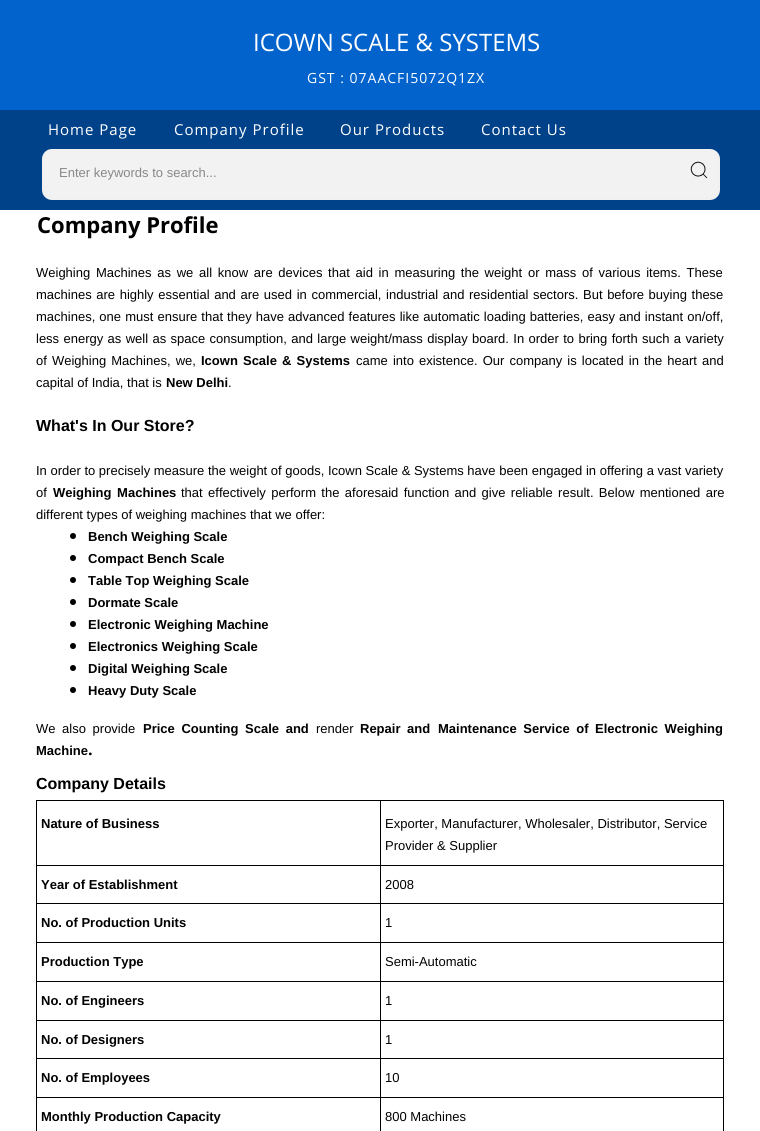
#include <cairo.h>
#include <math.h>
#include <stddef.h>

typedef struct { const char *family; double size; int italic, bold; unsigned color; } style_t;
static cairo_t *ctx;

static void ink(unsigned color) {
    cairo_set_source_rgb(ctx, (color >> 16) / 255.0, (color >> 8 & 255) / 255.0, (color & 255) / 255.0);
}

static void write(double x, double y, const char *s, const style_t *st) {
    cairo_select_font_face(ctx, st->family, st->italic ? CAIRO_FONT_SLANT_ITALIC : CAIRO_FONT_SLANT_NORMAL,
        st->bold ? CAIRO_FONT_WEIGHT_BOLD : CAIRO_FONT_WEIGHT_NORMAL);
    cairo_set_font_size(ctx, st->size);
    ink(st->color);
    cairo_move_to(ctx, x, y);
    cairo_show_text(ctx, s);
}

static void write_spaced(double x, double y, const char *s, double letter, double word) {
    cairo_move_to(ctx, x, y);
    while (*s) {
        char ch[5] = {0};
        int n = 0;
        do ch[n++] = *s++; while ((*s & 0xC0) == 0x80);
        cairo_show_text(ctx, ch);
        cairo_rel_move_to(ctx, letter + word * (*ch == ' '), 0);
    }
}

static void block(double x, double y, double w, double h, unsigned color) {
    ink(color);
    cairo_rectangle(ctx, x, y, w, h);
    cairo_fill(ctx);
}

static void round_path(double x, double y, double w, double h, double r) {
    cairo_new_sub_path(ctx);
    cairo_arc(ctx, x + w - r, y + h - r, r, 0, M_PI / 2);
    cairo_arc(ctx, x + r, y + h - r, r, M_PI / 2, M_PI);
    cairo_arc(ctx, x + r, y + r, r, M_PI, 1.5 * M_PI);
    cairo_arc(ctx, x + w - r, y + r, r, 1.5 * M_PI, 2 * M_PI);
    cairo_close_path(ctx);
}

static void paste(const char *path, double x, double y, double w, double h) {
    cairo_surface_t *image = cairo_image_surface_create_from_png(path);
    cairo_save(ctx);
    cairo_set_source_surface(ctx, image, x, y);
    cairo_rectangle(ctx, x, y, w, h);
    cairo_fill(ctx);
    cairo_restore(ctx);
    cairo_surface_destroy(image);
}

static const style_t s1 = {"Open Sans", 24, 0, 0, 0xffffff};
static const style_t s2 = {"Liberation Sans", 13, 0, 0, 0x888888};
static const style_t s3 = {"Open Sans", 22, 0, 1, 0x000000};
static const style_t s4 = {"Liberation Sans", 13, 0, 0, 0x000000};
static const style_t s5 = {"Liberation Sans", 13, 0, 1, 0x000000};
static const style_t s6 = {"Liberation Sans", 16, 0, 1, 0x000000};
static const style_t s7 = {"Open Sans", 16, 0, 1, 0x000000};

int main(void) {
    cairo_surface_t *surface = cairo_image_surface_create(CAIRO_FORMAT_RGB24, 760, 1131);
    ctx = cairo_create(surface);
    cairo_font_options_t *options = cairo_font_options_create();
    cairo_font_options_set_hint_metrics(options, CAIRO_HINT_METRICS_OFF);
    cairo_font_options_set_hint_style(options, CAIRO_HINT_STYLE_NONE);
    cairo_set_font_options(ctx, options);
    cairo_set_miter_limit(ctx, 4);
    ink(0xffffff);
    cairo_paint(ctx);
    block(0, 0, 760, 110, 0x0263cc);
    write(253, 51, "ICOWN SCALE & SYSTEMS", &s1);
    cairo_set_font_size(ctx, 14);
    write_spaced(307, 83, "GST : 07AACFI5072Q1ZX", 1, 0);
    block(0, 110, 760, 100, 0x00428a);
    cairo_set_font_size(ctx, 15);
    ink(0xffffff);
    write_spaced(48, 135, "Home Page", 1, 0);
    write_spaced(174, 135, "Company Profile", 1, 0);
    write_spaced(340, 135, "Our Products", 1, 0);
    write_spaced(481, 135, "Contact Us", 1, 0);
    ink(0xf2f2f2);
    round_path(43.5, 150.5, 675, 48, 8.5);
    cairo_fill_preserve(ctx);
    ink(0xf1f1f1);
    cairo_set_line_width(ctx, 3);
    cairo_stroke(ctx);
    write(59, 177, "Enter keywords to search...", &s2);
    paste("pic1.png", 690, 161, 18, 18);
    write(37, 233, "Company Profile", &s3);
    cairo_select_font_face(ctx, "Liberation Sans", CAIRO_FONT_SLANT_NORMAL, CAIRO_FONT_WEIGHT_NORMAL);
    cairo_set_font_size(ctx, 13);
    write_spaced(36, 277, "Weighing Machines as we all know are devices that aid in measuring the weight or mass of various items. These", 0, 2.1);
    write_spaced(36, 299, "machines are highly essential and are used in commercial, industrial and residential sectors. But before buying these", 0, 1);
    write_spaced(36, 321, "machines, one must ensure that they have advanced features like automatic loading batteries, easy and instant on/off,", 0, 0.5);
    write_spaced(36, 343, "less energy as well as space consumption, and large weight/mass display board. In order to bring forth such a variety", 0, 0.75);
    write_spaced(36, 365, "of Weighing Machines, we,", 0, 1.5);
    cairo_select_font_face(ctx, "Liberation Sans", CAIRO_FONT_SLANT_NORMAL, CAIRO_FONT_WEIGHT_BOLD);
    write_spaced(201, 365, "Icown Scale & Systems", 0, 1.5);
    cairo_select_font_face(ctx, "Liberation Sans", CAIRO_FONT_SLANT_NORMAL, CAIRO_FONT_WEIGHT_NORMAL);
    write_spaced(356, 365, "came into existence. Our company is located in the heart and", 0, 1.5);
    write(36, 387, "capital of India, that is", &s4);
    write(166, 387, "New Delhi", &s5);
    write(228, 387, ".", &s4);
    write(36, 431, "What's In Our Store?", &s6);
    write(36, 475, "In order to precisely measure the weight of goods, Icown Scale & Systems have been engaged in offering a vast variety", &s4);
    write(36, 497, "of", &s4);
    cairo_select_font_face(ctx, "Liberation Sans", CAIRO_FONT_SLANT_NORMAL, CAIRO_FONT_WEIGHT_BOLD);
    write_spaced(53, 497, "Weighing Machines", 0, 2);
    cairo_select_font_face(ctx, "Liberation Sans", CAIRO_FONT_SLANT_NORMAL, CAIRO_FONT_WEIGHT_NORMAL);
    write_spaced(181, 497, "that effectively perform the aforesaid function and give reliable result. Below mentioned are", 0, 1.75);
    write(36, 519, "different types of weighing machines that we offer:", &s4);
    cairo_new_path(ctx);
    cairo_arc(ctx, 73, 536, 3, 0, 2 * M_PI);
    cairo_fill(ctx);
    write(88, 541, "Bench Weighing Scale", &s5);
    cairo_new_path(ctx);
    cairo_arc(ctx, 73, 558, 3, 0, 2 * M_PI);
    cairo_fill(ctx);
    write(88, 563, "Compact Bench Scale", &s5);
    cairo_new_path(ctx);
    cairo_arc(ctx, 73, 580, 3, 0, 2 * M_PI);
    cairo_fill(ctx);
    write(88, 585, "Table Top Weighing Scale", &s5);
    cairo_new_path(ctx);
    cairo_arc(ctx, 73, 602, 3, 0, 2 * M_PI);
    cairo_fill(ctx);
    write(88, 607, "Dormate Scale", &s5);
    cairo_new_path(ctx);
    cairo_arc(ctx, 73, 624, 3, 0, 2 * M_PI);
    cairo_fill(ctx);
    write(88, 629, "Electronic Weighing Machine", &s5);
    cairo_new_path(ctx);
    cairo_arc(ctx, 73, 646, 3, 0, 2 * M_PI);
    cairo_fill(ctx);
    write(88, 651, "Electronics Weighing Scale", &s5);
    cairo_new_path(ctx);
    cairo_arc(ctx, 73, 668, 3, 0, 2 * M_PI);
    cairo_fill(ctx);
    write(88, 673, "Digital Weighing Scale", &s5);
    cairo_new_path(ctx);
    cairo_arc(ctx, 73, 690, 3, 0, 2 * M_PI);
    cairo_fill(ctx);
    write(88, 695, "Heavy Duty Scale", &s5);
    cairo_select_font_face(ctx, "Liberation Sans", CAIRO_FONT_SLANT_NORMAL, CAIRO_FONT_WEIGHT_NORMAL);
    write_spaced(36, 733, "We also provide", 0, 3);
    cairo_select_font_face(ctx, "Liberation Sans", CAIRO_FONT_SLANT_NORMAL, CAIRO_FONT_WEIGHT_BOLD);
    write_spaced(143, 733, "Price Counting Scale and", 0, 3);
    write(316, 733, "render", &s4);
    cairo_select_font_face(ctx, "Liberation Sans", CAIRO_FONT_SLANT_NORMAL, CAIRO_FONT_WEIGHT_BOLD);
    write_spaced(360, 733, "Repair and", 0, 3);
    write_spaced(438, 733, "Maintenance Service of", 0, 3);
    write_spaced(595, 733, "Electronic Weighing", 0, 3);
    write(36, 755, "Machine", &s5);
    write(88, 755, ".", &s7);
    write(36, 789, "Company Details", &s6);
    block(36, 800, 344, 1, 0x000000);
    block(36, 865, 344, 1, 0x000000);
    block(36, 800, 1, 66, 0x000000);
    write(41, 828, "Nature of Business", &s5);
    cairo_rectangle(ctx, 380.5, 800.5, 343, 65);
    cairo_set_line_width(ctx, 1);
    cairo_stroke(ctx);
    write(385, 828, "Exporter, Manufacturer, Wholesaler, Distributor, Service", &s4);
    write(385, 850, "Provider & Supplier", &s4);
    block(36, 903, 344, 1, 0x000000);
    block(36, 866, 1, 38, 0x000000);
    write(41, 889, "Year of Establishment", &s5);
    block(723, 866, 1, 265, 0x000000);
    block(380, 903, 344, 1, 0x000000);
    block(380, 866, 1, 38, 0x000000);
    write(385, 889, "2008", &s4);
    block(36, 942, 688, 1, 0x000000);
    block(36, 904, 1, 39, 0x000000);
    write(41, 927, "No. of Production Units", &s5);
    block(380, 904, 1, 39, 0x000000);
    write(385, 927, "1", &s4);
    block(36, 981, 688, 1, 0x000000);
    block(36, 943, 1, 39, 0x000000);
    write(41, 966, "Production Type", &s5);
    block(380, 943, 1, 39, 0x000000);
    write(385, 966, "Semi-Automatic", &s4);
    block(36, 1020, 688, 1, 0x000000);
    block(36, 982, 1, 39, 0x000000);
    write(41, 1005, "No. of Engineers", &s5);
    block(380, 982, 1, 39, 0x000000);
    write(385, 1005, "1", &s4);
    block(36, 1058, 688, 1, 0x000000);
    block(36, 1021, 1, 38, 0x000000);
    write(41, 1044, "No. of Designers", &s5);
    block(380, 1021, 1, 38, 0x000000);
    write(385, 1044, "1", &s4);
    block(36, 1097, 688, 1, 0x000000);
    block(36, 1059, 1, 72, 0x000000);
    write(41, 1082, "No. of Employees", &s5);
    block(380, 1059, 1, 72, 0x000000);
    write(385, 1082, "10", &s4);
    write(41, 1121, "Monthly Production Capacity", &s5);
    write(385, 1121, "800 Machines", &s4);
    cairo_surface_write_to_png(surface, "screenshot.png");
    cairo_font_options_destroy(options);
    cairo_destroy(ctx);
    cairo_surface_destroy(surface);
    return 0;
}
